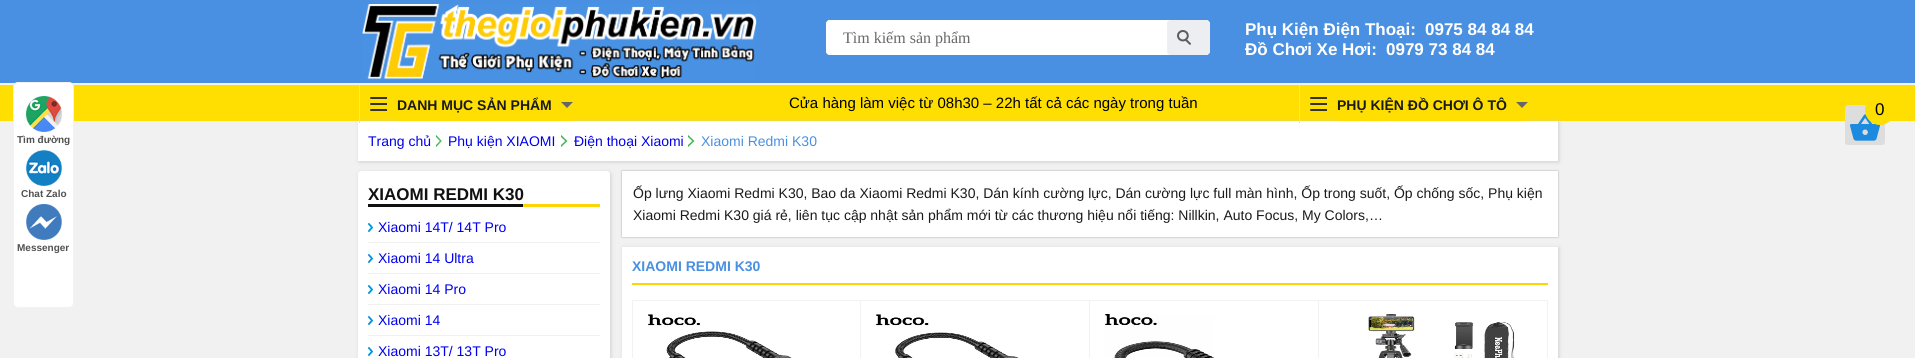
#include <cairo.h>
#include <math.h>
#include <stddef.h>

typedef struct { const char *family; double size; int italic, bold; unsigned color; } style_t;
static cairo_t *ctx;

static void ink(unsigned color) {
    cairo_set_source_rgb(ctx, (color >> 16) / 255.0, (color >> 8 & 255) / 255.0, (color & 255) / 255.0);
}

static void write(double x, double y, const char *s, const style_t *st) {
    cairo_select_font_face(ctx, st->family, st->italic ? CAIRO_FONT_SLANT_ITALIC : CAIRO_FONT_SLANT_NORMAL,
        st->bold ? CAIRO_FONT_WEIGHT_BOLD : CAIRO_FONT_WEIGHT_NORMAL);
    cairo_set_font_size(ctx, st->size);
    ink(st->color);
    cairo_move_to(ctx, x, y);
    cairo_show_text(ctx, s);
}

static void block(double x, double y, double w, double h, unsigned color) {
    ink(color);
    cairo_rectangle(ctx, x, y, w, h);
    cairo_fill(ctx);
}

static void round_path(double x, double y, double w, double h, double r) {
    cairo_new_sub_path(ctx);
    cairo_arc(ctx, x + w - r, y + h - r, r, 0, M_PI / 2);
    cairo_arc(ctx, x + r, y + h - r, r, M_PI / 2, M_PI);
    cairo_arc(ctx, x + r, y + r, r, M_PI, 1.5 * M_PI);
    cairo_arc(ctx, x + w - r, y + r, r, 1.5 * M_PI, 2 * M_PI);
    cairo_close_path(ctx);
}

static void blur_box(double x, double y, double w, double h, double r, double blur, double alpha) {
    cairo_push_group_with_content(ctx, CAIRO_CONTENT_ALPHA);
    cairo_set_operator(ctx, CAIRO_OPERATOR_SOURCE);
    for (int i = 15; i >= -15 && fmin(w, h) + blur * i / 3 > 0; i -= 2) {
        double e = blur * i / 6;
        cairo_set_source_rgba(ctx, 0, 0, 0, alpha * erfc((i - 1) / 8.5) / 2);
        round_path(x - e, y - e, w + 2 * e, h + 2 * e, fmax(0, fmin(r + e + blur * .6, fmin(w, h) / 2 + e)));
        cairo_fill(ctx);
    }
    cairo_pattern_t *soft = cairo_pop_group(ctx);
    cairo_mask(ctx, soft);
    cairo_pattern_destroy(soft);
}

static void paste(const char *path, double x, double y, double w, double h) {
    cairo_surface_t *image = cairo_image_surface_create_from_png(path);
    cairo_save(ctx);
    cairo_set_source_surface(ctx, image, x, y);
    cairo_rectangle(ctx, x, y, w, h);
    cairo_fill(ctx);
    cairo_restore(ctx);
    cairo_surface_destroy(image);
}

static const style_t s1 = {"Liberation Serif", 16, 0, 0, 0x686868};
static const style_t s2 = {"Liberation Sans", 17, 0, 1, 0xffffff};
static const style_t s3 = {"Liberation Sans", 15, 0, 0, 0x000000};
static const style_t s4 = {"Liberation Sans", 14, 0, 1, 0x1a1a1a};
static const style_t s5 = {"Liberation Sans", 14, 0, 0, 0x0000ee};
static const style_t s6 = {"Liberation Sans", 14, 0, 0, 0x4a90e2};
static const style_t s7 = {"Liberation Sans", 17, 0, 1, 0x111111};
static const style_t s8 = {"Liberation Sans", 14, 0, 0, 0x1a1a1a};
static const style_t s9 = {"Liberation Sans", 14, 0, 1, 0x4a90e2};
static const style_t s10 = {"Liberation Sans", 17, 0, 0, 0x000000};
static const style_t s11 = {"Liberation Sans", 10, 0, 1, 0x515151};

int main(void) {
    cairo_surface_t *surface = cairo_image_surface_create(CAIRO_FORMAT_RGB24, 1915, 358);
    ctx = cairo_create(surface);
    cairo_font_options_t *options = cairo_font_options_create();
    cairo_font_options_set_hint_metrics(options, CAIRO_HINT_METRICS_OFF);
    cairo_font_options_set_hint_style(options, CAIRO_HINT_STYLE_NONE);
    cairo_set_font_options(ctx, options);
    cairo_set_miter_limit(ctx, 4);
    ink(0xf1f1f1);
    cairo_paint(ctx);
    block(0, 0, 1915, 83, 0x4a90e2);
    paste("pic1.png", 362, 4, 395, 76);
    ink(0xffffff);
    round_path(826, 20, 384, 35, 4);
    cairo_fill(ctx);
    round_path(826, 20, 322, 35, 4);
    cairo_fill(ctx);
    write(843, 43, "Tìm kiếm sản phẩm", &s1);
    ink(0xedeef2);
    round_path(1167, 20, 43, 35, 4);
    cairo_fill(ctx);
    paste("pic2.png", 1177, 30, 14, 15);
    write(1245, 35, "Phụ Kiện Điện Thoại:", &s2);
    write(1425, 35, "0975 84 84 84", &s2);
    write(1245, 55, "Đồ Chơi Xe Hơi:", &s2);
    write(1386, 55, "0979 73 84 84", &s2);
    block(0, 85, 1915, 36, 0xffde02);
    write(789, 108, "Cửa hàng làm việc từ 08h30 – 22h tất cả các ngày trong tuần", &s3);
    ink(0xd0d0d0);
    blur_box(359, 122, 1200, 40, 0, 2, 1);
    block(358, 121, 1200, 40, 0xffffff);
    block(359, 85, 1, 38, 0xdddddd);
    ink(0x333333);
    cairo_new_path(ctx);
    cairo_move_to(ctx, 371, 97);
    cairo_line_to(ctx, 387, 97);
    cairo_line_to(ctx, 387, 99);
    cairo_line_to(ctx, 371, 99);
    cairo_curve_to(ctx, 370.5, 99, 370, 98.5, 370, 98);
    cairo_curve_to(ctx, 370, 97.5, 370.5, 97, 371, 97);
    cairo_close_path(ctx);
    cairo_fill(ctx);
    cairo_new_path(ctx);
    cairo_move_to(ctx, 371, 103);
    cairo_line_to(ctx, 387, 103);
    cairo_line_to(ctx, 387, 105);
    cairo_line_to(ctx, 371, 105);
    cairo_curve_to(ctx, 370.5, 105, 370, 104.5, 370, 104);
    cairo_curve_to(ctx, 370, 103.5, 370.5, 103, 371, 103);
    cairo_close_path(ctx);
    cairo_fill(ctx);
    cairo_new_path(ctx);
    cairo_move_to(ctx, 371, 109);
    cairo_line_to(ctx, 387, 109);
    cairo_line_to(ctx, 387, 111);
    cairo_line_to(ctx, 371, 111);
    cairo_curve_to(ctx, 370.5, 111, 370, 110.5, 370, 110);
    cairo_curve_to(ctx, 370, 109.5, 370.5, 109, 371, 109);
    cairo_close_path(ctx);
    cairo_fill(ctx);
    block(397, 118, 176, 3, 0xffde02);
    write(397, 110, "DANH MỤC SẢN PHẨM", &s4);
    ink(0x666666);
    cairo_new_path(ctx);
    cairo_move_to(ctx, 561, 102);
    cairo_line_to(ctx, 573, 102);
    cairo_line_to(ctx, 567, 108);
    cairo_close_path(ctx);
    cairo_fill(ctx);
    block(1299, 85, 1, 38, 0xdddddd);
    ink(0x333333);
    cairo_new_path(ctx);
    cairo_move_to(ctx, 1311, 97);
    cairo_line_to(ctx, 1327, 97);
    cairo_line_to(ctx, 1327, 99);
    cairo_line_to(ctx, 1311, 99);
    cairo_curve_to(ctx, 1310.5, 99, 1310, 98.5, 1310, 98);
    cairo_curve_to(ctx, 1310, 97.5, 1310.5, 97, 1311, 97);
    cairo_close_path(ctx);
    cairo_fill(ctx);
    cairo_new_path(ctx);
    cairo_move_to(ctx, 1311, 103);
    cairo_line_to(ctx, 1327, 103);
    cairo_line_to(ctx, 1327, 105);
    cairo_line_to(ctx, 1311, 105);
    cairo_curve_to(ctx, 1310.5, 105, 1310, 104.5, 1310, 104);
    cairo_curve_to(ctx, 1310, 103.5, 1310.5, 103, 1311, 103);
    cairo_close_path(ctx);
    cairo_fill(ctx);
    cairo_new_path(ctx);
    cairo_move_to(ctx, 1311, 109);
    cairo_line_to(ctx, 1327, 109);
    cairo_line_to(ctx, 1327, 111);
    cairo_line_to(ctx, 1311, 111);
    cairo_curve_to(ctx, 1310.5, 111, 1310, 110.5, 1310, 110);
    cairo_curve_to(ctx, 1310, 109.5, 1310.5, 109, 1311, 109);
    cairo_close_path(ctx);
    cairo_fill(ctx);
    block(1337, 118, 191, 3, 0xffde02);
    write(1337, 110, "PHỤ KIỆN ĐỒ CHƠI Ô TÔ", &s4);
    ink(0x666666);
    cairo_new_path(ctx);
    cairo_move_to(ctx, 1516, 102);
    cairo_line_to(ctx, 1528, 102);
    cairo_line_to(ctx, 1522, 108);
    cairo_close_path(ctx);
    cairo_fill(ctx);
    write(368, 146, "Trang chủ", &s5);
    paste("pic3.png", 436, 135, 6, 12);
    write(448, 146, "Phụ kiện XIAOMI", &s5);
    paste("pic4.png", 561, 135, 7, 12);
    write(574, 146, "Điện thoại Xiaomi", &s5);
    paste("pic4.png", 688, 135, 7, 12);
    write(701, 146, "Xiaomi Redmi K30", &s6);
    ink(0xd0d0d0);
    blur_box(359, 172, 252, 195, 3, 2, 1);
    ink(0xffffff);
    cairo_new_path(ctx);
    cairo_move_to(ctx, 361, 171);
    cairo_line_to(ctx, 607, 171);
    cairo_curve_to(ctx, 608.5, 171, 610, 172.5, 610, 174);
    cairo_line_to(ctx, 610, 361);
    cairo_line_to(ctx, 358, 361);
    cairo_line_to(ctx, 358, 174);
    cairo_curve_to(ctx, 358, 172.5, 359.5, 171, 361, 171);
    cairo_close_path(ctx);
    cairo_fill(ctx);
    block(523, 204, 77, 3, 0xfdd504);
    block(368, 204, 155, 3, 0x111111);
    write(368, 200, "XIAOMI REDMI K30", &s7);
    paste("pic5.png", 368, 223, 5, 9);
    block(368, 242, 232, 1, 0xf1f1f1);
    write(378, 232, "Xiaomi 14T/ 14T Pro", &s5);
    paste("pic5.png", 368, 254, 5, 9);
    block(368, 273, 232, 1, 0xf1f1f1);
    write(378, 263, "Xiaomi 14 Ultra", &s5);
    paste("pic5.png", 368, 285, 5, 9);
    block(368, 304, 232, 1, 0xf1f1f1);
    write(378, 294, "Xiaomi 14 Pro", &s5);
    paste("pic5.png", 368, 316, 5, 9);
    block(368, 335, 232, 1, 0xf1f1f1);
    write(378, 325, "Xiaomi 14", &s5);
    paste("pic5.png", 368, 347, 5, 9);
    write(378, 356, "Xiaomi 13T/ 13T Pro", &s5);
    ink(0x000000);
    blur_box(622, 171, 936, 66, 0, 1, 0.3);
    block(622, 171, 936, 66, 0xffffff);
    write(633, 198, "Ốp lưng Xiaomi Redmi K30, Bao da Xiaomi Redmi K30, Dán kính cường lực, Dán cường lực full màn hình, Ốp trong suốt, Ốp chống sốc, Phụ kiện", &s8);
    write(633, 220, "Xiaomi Redmi K30 giá rẻ, liên tục cập nhật sản phẩm mới từ các thương hiệu nổi tiếng: Nillkin, Auto Focus, My Colors,…", &s8);
    ink(0xd0d0d0);
    blur_box(623, 248, 936, 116, 0, 2, 1);
    block(622, 247, 936, 111, 0xffffff);
    block(632, 283, 916, 2, 0xfdd504);
    write(632, 271, "XIAOMI REDMI K30", &s9);
    cairo_rectangle(ctx, 632.5, 300.5, 228, 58);
    ink(0xf2f2f2);
    cairo_set_line_width(ctx, 1);
    cairo_stroke(ctx);
    paste("pic6.png", 648, 314, 144, 44);
    cairo_rectangle(ctx, 860.5, 300.5, 229, 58);
    cairo_stroke(ctx);
    paste("pic7.png", 876, 314, 143, 44);
    cairo_rectangle(ctx, 1089.5, 300.5, 229, 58);
    cairo_stroke(ctx);
    paste("pic8.png", 1104, 314, 111, 44);
    cairo_rectangle(ctx, 1318.5, 300.5, 229, 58);
    cairo_stroke(ctx);
    paste("pic9.png", 1368, 314, 147, 44);
    ink(0xdddddd);
    round_path(1845, 105, 40, 40, 3);
    cairo_fill(ctx);
    paste("pic10.png", 1850, 114, 30, 27);
    ink(0xffde02);
    cairo_arc(ctx, 1880, 110, 15, 0, 2 * M_PI);
    cairo_fill(ctx);
    write(1875, 115, "0", &s10);
    ink(0xffffff);
    round_path(13.5, 82.5, 60, 225, 4.5);
    cairo_fill_preserve(ctx);
    ink(0xf2f2f2);
    cairo_stroke(ctx);
    paste("pic11.png", 26, 96, 36, 36);
    write(17, 143, "Tìm đường", &s11);
    paste("pic12.png", 26, 150, 36, 36);
    write(21, 197, "Chat Zalo", &s11);
    paste("pic13.png", 26, 204, 36, 36);
    write(17, 251, "Messenger", &s11);
    cairo_surface_write_to_png(surface, "screenshot.png");
    cairo_font_options_destroy(options);
    cairo_destroy(ctx);
    cairo_surface_destroy(surface);
    return 0;
}
